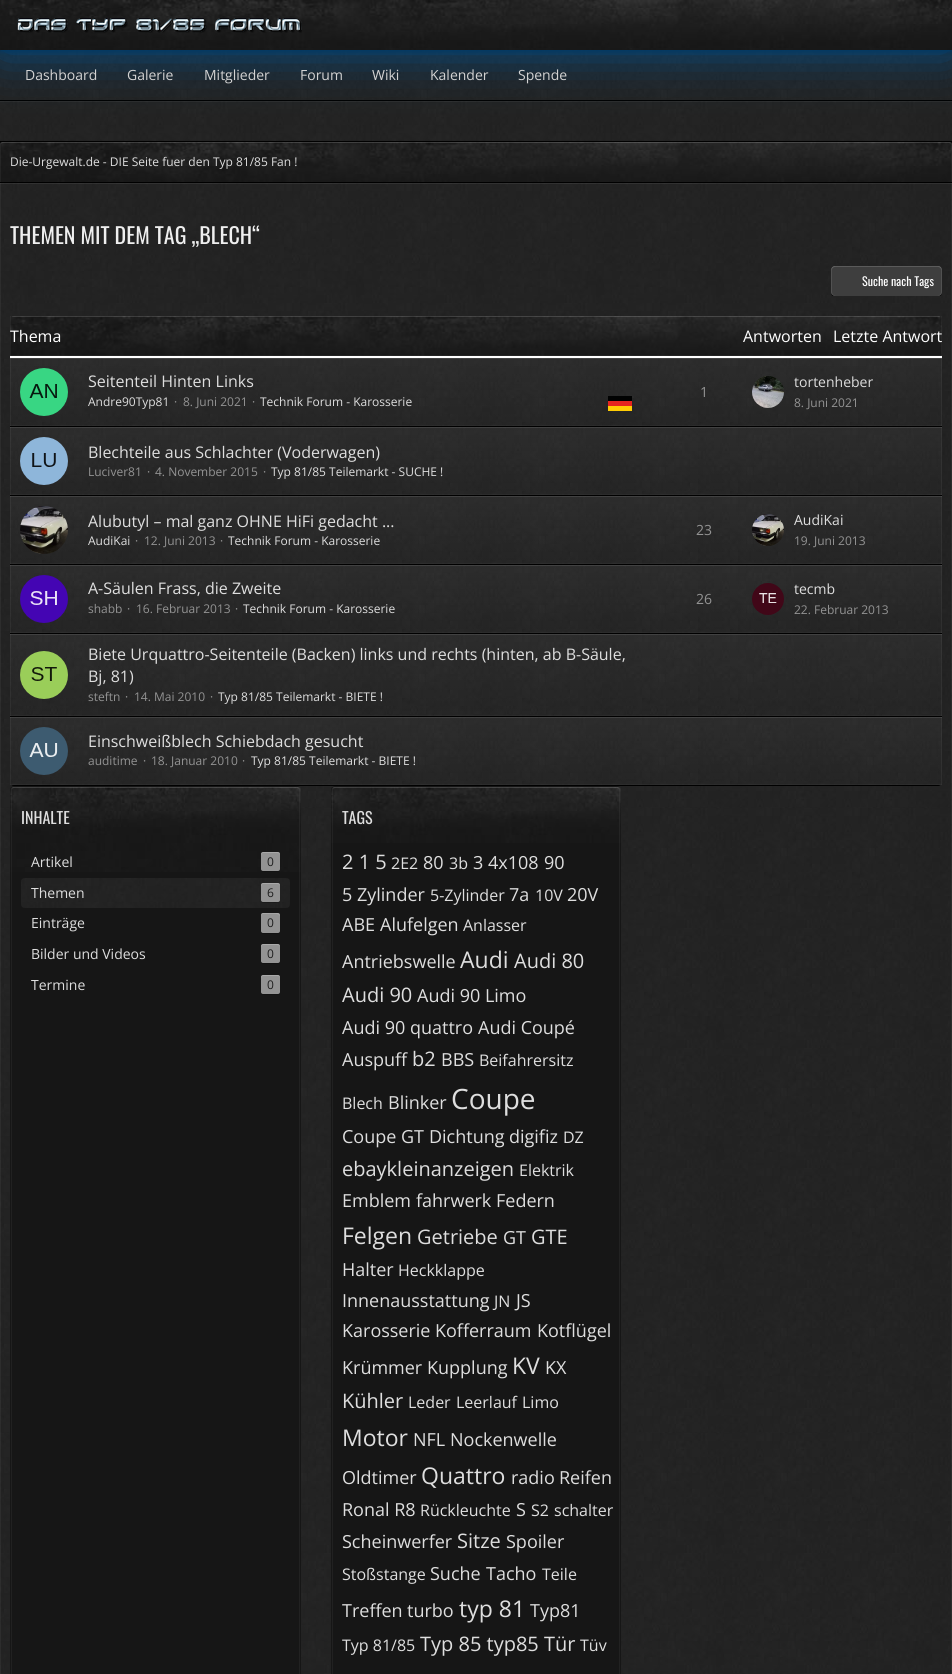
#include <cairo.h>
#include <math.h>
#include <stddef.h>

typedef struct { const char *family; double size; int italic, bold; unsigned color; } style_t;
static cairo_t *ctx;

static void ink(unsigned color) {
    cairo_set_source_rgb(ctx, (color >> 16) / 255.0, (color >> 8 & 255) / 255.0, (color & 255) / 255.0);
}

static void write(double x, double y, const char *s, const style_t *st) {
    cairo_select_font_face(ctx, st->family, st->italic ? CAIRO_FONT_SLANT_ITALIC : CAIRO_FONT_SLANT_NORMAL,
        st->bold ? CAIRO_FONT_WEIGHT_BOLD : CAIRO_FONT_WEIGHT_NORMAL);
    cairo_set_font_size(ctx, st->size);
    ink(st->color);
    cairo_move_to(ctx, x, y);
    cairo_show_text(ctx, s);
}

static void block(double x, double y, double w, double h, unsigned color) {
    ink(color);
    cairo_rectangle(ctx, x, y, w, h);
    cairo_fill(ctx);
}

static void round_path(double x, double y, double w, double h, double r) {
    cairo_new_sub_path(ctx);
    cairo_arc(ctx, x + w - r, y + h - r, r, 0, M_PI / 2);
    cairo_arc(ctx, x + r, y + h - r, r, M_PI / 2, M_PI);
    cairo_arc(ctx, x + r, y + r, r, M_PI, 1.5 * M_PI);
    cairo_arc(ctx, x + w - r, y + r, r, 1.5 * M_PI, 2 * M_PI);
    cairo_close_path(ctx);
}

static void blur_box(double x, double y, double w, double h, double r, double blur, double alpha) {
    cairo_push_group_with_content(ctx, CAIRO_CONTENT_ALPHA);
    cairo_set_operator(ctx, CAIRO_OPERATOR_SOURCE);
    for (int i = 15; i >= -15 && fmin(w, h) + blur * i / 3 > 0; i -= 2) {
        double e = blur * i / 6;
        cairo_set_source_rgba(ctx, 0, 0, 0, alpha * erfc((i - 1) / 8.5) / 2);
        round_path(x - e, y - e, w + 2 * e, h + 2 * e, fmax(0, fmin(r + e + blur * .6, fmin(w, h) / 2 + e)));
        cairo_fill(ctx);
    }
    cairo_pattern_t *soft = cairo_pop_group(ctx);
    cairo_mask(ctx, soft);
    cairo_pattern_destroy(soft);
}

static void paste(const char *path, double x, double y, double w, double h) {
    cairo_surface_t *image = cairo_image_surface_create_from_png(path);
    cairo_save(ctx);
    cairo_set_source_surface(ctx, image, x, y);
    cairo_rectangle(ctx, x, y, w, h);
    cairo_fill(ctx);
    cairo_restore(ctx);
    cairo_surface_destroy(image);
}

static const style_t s1 = {"Open Sans", 14, 0, 0, 0xd3d3d3};
static const style_t s2 = {"Open Sans", 12, 0, 0, 0xdedede};
static const style_t s3 = {"Oswald", 22, 0, 0, 0xefefef};
static const style_t s4 = {"Oswald", 12, 0, 0, 0xffffff};
static const style_t s5 = {"Open Sans", 16, 0, 0, 0xffffff};
static const style_t s6 = {"Open Sans", 16, 0, 0, 0xdedede};
static const style_t s7 = {"Open Sans", 12, 0, 0, 0x939393};
static const style_t s8 = {"Open Sans", 14, 0, 0, 0x939393};
static const style_t s9 = {"Open Sans", 14, 0, 0, 0xdedede};
static const style_t s10 = {"Oswald", 16, 0, 0, 0xdedede};
static const style_t s11 = {"Open Sans", 12, 0, 0, 0x1e1e1e};
static const style_t s12 = {"Open Sans", 20, 0, 0, 0xdedede};
static const style_t s13 = {"Open Sans", 18, 0, 0, 0xdedede};
static const style_t s14 = {"Open Sans", 23, 0, 0, 0xdedede};
static const style_t s15 = {"Open Sans", 28, 0, 0, 0xdedede};

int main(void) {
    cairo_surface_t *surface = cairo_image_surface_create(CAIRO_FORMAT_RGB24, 952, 1674);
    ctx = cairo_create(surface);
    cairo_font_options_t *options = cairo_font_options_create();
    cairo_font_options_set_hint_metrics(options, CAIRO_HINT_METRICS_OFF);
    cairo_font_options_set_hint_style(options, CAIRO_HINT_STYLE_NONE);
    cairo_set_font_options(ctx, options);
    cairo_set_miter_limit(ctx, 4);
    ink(0x1e1e1e);
    cairo_paint(ctx);
    paste("pic3.png", 0, 50, 952, 50);
    paste("pic4.png", 0, 101, 952, 40);
    cairo_set_source_rgba(ctx, 1, 1, 1, 0.05);
    cairo_rectangle(ctx, 0, 101, 952, 1);
    cairo_fill(ctx);
    block(0, 100, 952, 1, 0x000000);
    ink(0x005394);
    blur_box(0, 1, 952, 50, 0, 25, 1);
    blur_box(0, 1, 952, 50, 0, 2.5, 1);
    ink(0x000000);
    blur_box(-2, -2, 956, 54, 0, 2.5, 0.3);
    paste("pic1.png", 0, 0, 952, 50);
    paste("pic2.png", 17, 17, 285, 16);
    write(25, 80, "Dashboard", &s1);
    write(127, 80, "Galerie", &s1);
    write(204, 80, "Mitglieder", &s1);
    write(300, 80, "Forum", &s1);
    write(372, 80, "Wiki", &s1);
    write(430, 80, "Kalender", &s1);
    write(518, 80, "Spende", &s1);
    block(0, 141, 952, 1, 0x000000);
    cairo_new_path(ctx);
    cairo_move_to(ctx, 952, 182);
    cairo_line_to(ctx, 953, 182);
    cairo_line_to(ctx, 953, 145);
    cairo_curve_to(ctx, 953, 143, 952, 142, 950, 142);
    cairo_line_to(ctx, 949, 142);
    cairo_curve_to(ctx, 951, 142, 952, 143, 952, 145);
    cairo_close_path(ctx);
    cairo_fill(ctx);
    cairo_new_path(ctx);
    cairo_move_to(ctx, 2, 142);
    cairo_curve_to(ctx, 0, 142, -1, 143, -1, 145);
    cairo_line_to(ctx, -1, 182);
    cairo_line_to(ctx, 0, 182);
    cairo_line_to(ctx, 0, 145);
    cairo_curve_to(ctx, 0, 143, 1, 142, 3, 142);
    cairo_close_path(ctx);
    cairo_fill(ctx);
    paste("pic5.png", 0, 142, 952, 40);
    cairo_set_source_rgba(ctx, 1, 1, 1, 0.05);
    cairo_new_path(ctx);
    cairo_move_to(ctx, 951, 182);
    cairo_line_to(ctx, 952, 182);
    cairo_line_to(ctx, 952, 145);
    cairo_curve_to(ctx, 952, 143, 951, 142, 949, 142);
    cairo_line_to(ctx, 948, 142);
    cairo_curve_to(ctx, 950, 142, 951, 143, 951, 145);
    cairo_close_path(ctx);
    cairo_fill(ctx);
    cairo_new_path(ctx);
    cairo_move_to(ctx, 3, 142);
    cairo_curve_to(ctx, 1, 142, 0, 143, 0, 145);
    cairo_line_to(ctx, 0, 182);
    cairo_line_to(ctx, 1, 182);
    cairo_line_to(ctx, 1, 145);
    cairo_curve_to(ctx, 1, 143, 2, 142, 4, 142);
    cairo_close_path(ctx);
    cairo_fill(ctx);
    cairo_set_source_rgba(ctx, 1, 1, 1, 0.15);
    cairo_new_path(ctx);
    cairo_move_to(ctx, 3, 143);
    cairo_line_to(ctx, 949, 143);
    cairo_curve_to(ctx, 951, 143, 952, 144, 952, 146);
    cairo_curve_to(ctx, 952, 144, 951, 142, 949, 142);
    cairo_line_to(ctx, 3, 142);
    cairo_curve_to(ctx, 1, 142, 0, 144, 0, 146);
    cairo_curve_to(ctx, 0, 144, 1, 143, 3, 143);
    cairo_close_path(ctx);
    cairo_fill(ctx);
    write(10, 166, "Die-Urgewalt.de - DIE Seite fuer den Typ 81/85 Fan !", &s2);
    paste("pic6.png", 0, 183, 952, 1491);
    cairo_set_source_rgba(ctx, 1, 1, 1, 0.05);
    cairo_rectangle(ctx, 951, 183, 1, 1491);
    cairo_fill(ctx);
    cairo_rectangle(ctx, 0, 183, 1, 1491);
    cairo_fill(ctx);
    cairo_set_source_rgba(ctx, 1, 1, 1, 0.07);
    cairo_rectangle(ctx, 0, 183, 952, 1);
    cairo_fill(ctx);
    block(0, 182, 952, 1, 0x000000);
    write(10, 244, "THEMEN MIT DEM TAG „BLECH“", &s3);
    cairo_save(ctx);
    cairo_rectangle(ctx, 831, 266, 111, 30);
    cairo_clip(ctx);
    ink(0x000000);
    cairo_new_path(ctx);
    cairo_move_to(ctx, 831, 292);
    cairo_curve_to(ctx, 831, 302, 849, 297, 852, 297);
    cairo_line_to(ctx, 921, 297);
    cairo_curve_to(ctx, 924, 297, 942, 302, 942, 292);
    cairo_curve_to(ctx, 942, 294, 940, 296, 938, 296);
    cairo_line_to(ctx, 835, 296);
    cairo_curve_to(ctx, 833, 296, 831, 294, 831, 292);
    cairo_close_path(ctx);
    cairo_fill(ctx);
    cairo_restore(ctx);
    ink(0x3e3e3e);
    round_path(831, 266, 111, 30, 4);
    cairo_fill(ctx);
    cairo_set_source_rgba(ctx, 1, 1, 1, 0.1);
    cairo_new_path(ctx);
    cairo_move_to(ctx, 835, 266);
    cairo_curve_to(ctx, 833, 266, 831, 268, 831, 270);
    cairo_line_to(ctx, 831, 292);
    cairo_curve_to(ctx, 831, 294, 833, 296, 835, 296);
    cairo_line_to(ctx, 836, 296);
    cairo_curve_to(ctx, 834, 296, 832, 294, 832, 292);
    cairo_line_to(ctx, 832, 270);
    cairo_curve_to(ctx, 832, 268, 834, 266, 836, 266);
    cairo_close_path(ctx);
    cairo_fill(ctx);
    cairo_new_path(ctx);
    cairo_move_to(ctx, 937, 296);
    cairo_curve_to(ctx, 942.5, 296, 942, 292.5, 942, 288.5);
    cairo_line_to(ctx, 942, 273.5);
    cairo_curve_to(ctx, 942, 269.5, 942.5, 266, 937, 266);
    cairo_curve_to(ctx, 939, 266, 941, 268, 941, 270);
    cairo_line_to(ctx, 941, 292);
    cairo_curve_to(ctx, 941, 294, 939, 296, 937, 296);
    cairo_close_path(ctx);
    cairo_fill(ctx);
    cairo_save(ctx);
    cairo_rectangle(ctx, 831, 266, 111, 30);
    cairo_clip(ctx);
    cairo_set_source_rgba(ctx, 1, 1, 1, 0.15);
    cairo_new_path(ctx);
    cairo_move_to(ctx, 835, 267);
    cairo_line_to(ctx, 938, 267);
    cairo_curve_to(ctx, 940, 267, 942, 269, 942, 271);
    cairo_curve_to(ctx, 942, 261, 924, 266, 921, 266);
    cairo_line_to(ctx, 852, 266);
    cairo_curve_to(ctx, 849, 266, 831, 261, 831, 271);
    cairo_curve_to(ctx, 831, 269, 833, 267, 835, 267);
    cairo_close_path(ctx);
    cairo_fill(ctx);
    cairo_restore(ctx);
    write(862, 286, "Suche nach Tags", &s4);
    cairo_save(ctx);
    round_path(10, 316, 932, 470, 4);
    cairo_clip(ctx);
    block(10, 785, 932, 1, 0x000000);
    cairo_restore(ctx);
    paste("pic7.png", 10, 316, 932, 40);
    cairo_set_source_rgba(ctx, 1, 1, 1, 0.05);
    cairo_rectangle(ctx, 941, 316, 1, 40);
    cairo_fill(ctx);
    cairo_rectangle(ctx, 10, 316, 1, 40);
    cairo_fill(ctx);
    cairo_rectangle(ctx, 10, 355, 932, 1);
    cairo_fill(ctx);
    cairo_save(ctx);
    round_path(10, 316, 932, 470, 4);
    cairo_clip(ctx);
    cairo_set_source_rgba(ctx, 1, 1, 1, 0.15);
    cairo_rectangle(ctx, 10, 316, 932, 1);
    cairo_fill(ctx);
    cairo_restore(ctx);
    block(10, 356, 932, 2, 0xffffff);
    write(10, 342, "Thema", &s5);
    write(743, 342, "Antworten", &s5);
    write(833, 342, "Letzte Antwort", &s5);
    paste("pic8.png", 10, 358, 932, 68);
    cairo_set_source_rgba(ctx, 1, 1, 1, 0.05);
    cairo_rectangle(ctx, 941, 358, 1, 68);
    cairo_fill(ctx);
    cairo_rectangle(ctx, 10, 358, 1, 68);
    cairo_fill(ctx);
    cairo_set_source_rgba(ctx, 1, 1, 1, 0.03);
    cairo_rectangle(ctx, 10, 425, 932, 1);
    cairo_fill(ctx);
    cairo_set_source_rgba(ctx, 1, 1, 1, 0.1);
    cairo_rectangle(ctx, 10, 358, 932, 1);
    cairo_fill(ctx);
    paste("pic9.png", 20, 368, 48, 48);
    write(88, 387, "Seitenteil Hinten Links", &s6);
    write(88, 406, "Andre90Typ81", &s2);
    write(174, 406, "·", &s7);
    write(183, 406, "8. Juni 2021", &s7);
    write(252, 406, "·", &s7);
    write(260, 406, "Technik Forum - Karosserie", &s2);
    block(608, 396, 24, 5, 0x010202);
    block(608, 401, 24, 5, 0xe52420);
    block(608, 406, 24, 5, 0xffcc04);
    write(700, 397, "1", &s8);
    paste("pic10.png", 752, 376, 32, 32);
    write(794, 387, "tortenheber", &s9);
    write(794, 407, "8. Juni 2021", &s7);
    paste("pic11.png", 10, 427, 932, 68);
    cairo_set_source_rgba(ctx, 1, 1, 1, 0.05);
    cairo_rectangle(ctx, 941, 427, 1, 68);
    cairo_fill(ctx);
    cairo_rectangle(ctx, 10, 427, 1, 68);
    cairo_fill(ctx);
    cairo_set_source_rgba(ctx, 1, 1, 1, 0.03);
    cairo_rectangle(ctx, 10, 494, 932, 1);
    cairo_fill(ctx);
    cairo_set_source_rgba(ctx, 1, 1, 1, 0.1);
    cairo_rectangle(ctx, 10, 427, 932, 1);
    cairo_fill(ctx);
    block(10, 426, 932, 1, 0x000000);
    paste("pic12.png", 20, 437, 48, 48);
    write(88, 458, "Blechteile aus Schlachter (Voderwagen)", &s6);
    write(88, 476, "Luciver81", &s7);
    write(147, 476, "·", &s7);
    write(155, 476, "4. November 2015", &s7);
    write(263, 476, "·", &s7);
    write(271, 476, "Typ 81/85 Teilemarkt - SUCHE !", &s2);
    paste("pic11.png", 10, 496, 932, 68);
    cairo_set_source_rgba(ctx, 1, 1, 1, 0.05);
    cairo_rectangle(ctx, 941, 496, 1, 68);
    cairo_fill(ctx);
    cairo_rectangle(ctx, 10, 496, 1, 68);
    cairo_fill(ctx);
    cairo_set_source_rgba(ctx, 1, 1, 1, 0.03);
    cairo_rectangle(ctx, 10, 563, 932, 1);
    cairo_fill(ctx);
    cairo_set_source_rgba(ctx, 1, 1, 1, 0.1);
    cairo_rectangle(ctx, 10, 496, 932, 1);
    cairo_fill(ctx);
    block(10, 495, 932, 1, 0x000000);
    paste("pic13.png", 20, 506, 48, 48);
    write(88, 527, "Alubutyl – mal ganz OHNE HiFi gedacht ...", &s6);
    write(88, 545, "AudiKai", &s2);
    write(135, 545, "·", &s7);
    write(144, 545, "12. Juni 2013", &s7);
    write(220, 545, "·", &s7);
    write(228, 545, "Technik Forum - Karosserie", &s2);
    write(696, 535, "23", &s8);
    paste("pic14.png", 752, 514, 32, 32);
    write(794, 525, "AudiKai", &s9);
    write(794, 545, "19. Juni 2013", &s7);
    paste("pic11.png", 10, 565, 932, 68);
    cairo_set_source_rgba(ctx, 1, 1, 1, 0.05);
    cairo_rectangle(ctx, 941, 565, 1, 68);
    cairo_fill(ctx);
    cairo_rectangle(ctx, 10, 565, 1, 68);
    cairo_fill(ctx);
    cairo_set_source_rgba(ctx, 1, 1, 1, 0.03);
    cairo_rectangle(ctx, 10, 632, 932, 1);
    cairo_fill(ctx);
    cairo_set_source_rgba(ctx, 1, 1, 1, 0.1);
    cairo_rectangle(ctx, 10, 565, 932, 1);
    cairo_fill(ctx);
    block(10, 564, 932, 1, 0x000000);
    paste("pic15.png", 20, 575, 48, 48);
    write(88, 594, "A-Säulen Frass, die Zweite", &s6);
    write(88, 613, "shabb", &s7);
    write(127, 613, "·", &s7);
    write(136, 613, "16. Februar 2013", &s7);
    write(235, 613, "·", &s7);
    write(243, 613, "Technik Forum - Karosserie", &s2);
    write(696, 604, "26", &s8);
    paste("pic16.png", 752, 583, 32, 32);
    write(794, 594, "tecmb", &s9);
    write(794, 614, "22. Februar 2013", &s7);
    paste("pic17.png", 10, 634, 932, 82);
    cairo_set_source_rgba(ctx, 1, 1, 1, 0.05);
    cairo_rectangle(ctx, 941, 634, 1, 82);
    cairo_fill(ctx);
    cairo_rectangle(ctx, 10, 634, 1, 82);
    cairo_fill(ctx);
    cairo_set_source_rgba(ctx, 1, 1, 1, 0.03);
    cairo_rectangle(ctx, 10, 715, 932, 1);
    cairo_fill(ctx);
    cairo_set_source_rgba(ctx, 1, 1, 1, 0.1);
    cairo_rectangle(ctx, 10, 634, 932, 1);
    cairo_fill(ctx);
    block(10, 633, 932, 1, 0x000000);
    paste("pic18.png", 20, 651, 48, 48);
    write(88, 660, "Biete Urquattro-Seitenteile (Backen) links und rechts (hinten, ab B-Säule,", &s6);
    write(88, 682, "Bj, 81)", &s6);
    write(88, 701, "steftn", &s7);
    write(125, 701, "·", &s7);
    write(134, 701, "14. Mai 2010", &s7);
    write(210, 701, "·", &s7);
    write(218, 701, "Typ 81/85 Teilemarkt - BIETE !", &s2);
    paste("pic19.png", 10, 717, 932, 68);
    cairo_set_source_rgba(ctx, 1, 1, 1, 0.05);
    cairo_rectangle(ctx, 941, 717, 1, 68);
    cairo_fill(ctx);
    cairo_rectangle(ctx, 10, 717, 1, 68);
    cairo_fill(ctx);
    cairo_set_source_rgba(ctx, 1, 1, 1, 0.03);
    cairo_rectangle(ctx, 10, 784, 932, 1);
    cairo_fill(ctx);
    cairo_set_source_rgba(ctx, 1, 1, 1, 0.1);
    cairo_rectangle(ctx, 10, 717, 932, 1);
    cairo_fill(ctx);
    block(10, 716, 932, 1, 0x000000);
    paste("pic20.png", 20, 727, 48, 48);
    write(88, 747, "Einschweißblech Schiebdach gesucht", &s6);
    write(88, 765, "auditime", &s7);
    write(143, 765, "·", &s7);
    write(151, 765, "18. Januar 2010", &s7);
    write(242, 765, "·", &s7);
    write(251, 765, "Typ 81/85 Teilemarkt - BIETE !", &s2);
    ink(0x161616);
    round_path(10, 786, 291, 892, 4);
    cairo_fill(ctx);
    paste("pic21.png", 10, 787, 291, 85);
    cairo_set_source_rgba(ctx, 1, 1, 1, 0.05);
    cairo_new_path(ctx);
    cairo_move_to(ctx, 296, 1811);
    cairo_curve_to(ctx, 298, 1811, 300, 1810, 300, 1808);
    cairo_line_to(ctx, 300, 790);
    cairo_curve_to(ctx, 300, 788, 298, 787, 296, 787);
    cairo_curve_to(ctx, 298, 787, 299, 788, 299, 790);
    cairo_line_to(ctx, 299, 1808);
    cairo_curve_to(ctx, 299, 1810, 298, 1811, 296, 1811);
    cairo_close_path(ctx);
    cairo_fill(ctx);
    cairo_new_path(ctx);
    cairo_move_to(ctx, 14, 787);
    cairo_curve_to(ctx, 12, 787, 11, 788, 11, 790);
    cairo_line_to(ctx, 11, 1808);
    cairo_curve_to(ctx, 11, 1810, 13, 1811, 15, 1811);
    cairo_curve_to(ctx, 13, 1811, 12, 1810, 12, 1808);
    cairo_line_to(ctx, 12, 790);
    cairo_curve_to(ctx, 12, 788, 13, 787, 15, 787);
    cairo_close_path(ctx);
    cairo_fill(ctx);
    cairo_set_source_rgba(ctx, 1, 1, 1, 0.15);
    cairo_new_path(ctx);
    cairo_move_to(ctx, 14, 788);
    cairo_line_to(ctx, 297, 788);
    cairo_curve_to(ctx, 299, 788, 300, 789, 300, 791);
    cairo_curve_to(ctx, 300, 789, 299, 787, 297, 787);
    cairo_line_to(ctx, 14, 787);
    cairo_curve_to(ctx, 12, 787, 11, 789, 11, 791);
    cairo_curve_to(ctx, 11, 789, 12, 788, 14, 788);
    cairo_close_path(ctx);
    cairo_fill(ctx);
    write(21, 824, "INHALTE", &s10);
    write(31, 867, "Artikel", &s9);
    ink(0x131313);
    cairo_new_path(ctx);
    cairo_move_to(ctx, 261, 869);
    cairo_curve_to(ctx, 261, 872.5, 262.5, 872, 265.5, 872);
    cairo_line_to(ctx, 275.5, 872);
    cairo_curve_to(ctx, 278.5, 872, 280, 872.5, 280, 869);
    cairo_curve_to(ctx, 280, 870, 279, 871, 278, 871);
    cairo_line_to(ctx, 263, 871);
    cairo_curve_to(ctx, 262, 871, 261, 870, 261, 869);
    cairo_close_path(ctx);
    cairo_fill(ctx);
    ink(0x939393);
    round_path(261, 852, 19, 19, 2);
    cairo_fill(ctx);
    cairo_set_source_rgba(ctx, 1, 1, 1, 0.2);
    cairo_set_fill_rule(ctx, CAIRO_FILL_RULE_EVEN_ODD);
    cairo_new_path(ctx);
    cairo_move_to(ctx, 263, 853);
    cairo_line_to(ctx, 276, 853);
    cairo_curve_to(ctx, 278.5, 853, 279.5, 853.5, 280, 854.5);
    cairo_curve_to(ctx, 280, 851.5, 277.5, 852, 275.5, 852);
    cairo_line_to(ctx, 265.5, 852);
    cairo_curve_to(ctx, 261.5, 852, 261, 852, 261, 856);
    cairo_curve_to(ctx, 261, 854.5, 262, 853, 263, 853);
    cairo_close_path(ctx);
    cairo_move_to(ctx, 261, 869.5);
    cairo_line_to(ctx, 261, 869);
    cairo_close_path(ctx);
    cairo_fill(ctx);
    write(267, 866, "0", &s11);
    paste("pic22.png", 21, 878, 269, 30);
    write(31, 898, "Themen", &s9);
    cairo_set_source_rgba(ctx, 0, 0, 0, 0.2);
    cairo_set_fill_rule(ctx, CAIRO_FILL_RULE_WINDING);
    cairo_new_path(ctx);
    cairo_move_to(ctx, 261, 900);
    cairo_curve_to(ctx, 261, 903.5, 262.5, 903, 265.5, 903);
    cairo_line_to(ctx, 275.5, 903);
    cairo_curve_to(ctx, 278.5, 903, 280, 903.5, 280, 900);
    cairo_curve_to(ctx, 280, 901, 279, 902, 278, 902);
    cairo_line_to(ctx, 263, 902);
    cairo_curve_to(ctx, 262, 902, 261, 901, 261, 900);
    cairo_close_path(ctx);
    cairo_fill(ctx);
    ink(0x939393);
    round_path(261, 883, 19, 19, 2);
    cairo_fill(ctx);
    cairo_set_source_rgba(ctx, 1, 1, 1, 0.2);
    cairo_set_fill_rule(ctx, CAIRO_FILL_RULE_EVEN_ODD);
    cairo_new_path(ctx);
    cairo_move_to(ctx, 263, 884);
    cairo_line_to(ctx, 276, 884);
    cairo_curve_to(ctx, 278.5, 884, 279.5, 884.5, 280, 885.5);
    cairo_curve_to(ctx, 280, 882.5, 278, 883, 275.5, 883);
    cairo_line_to(ctx, 265.5, 883);
    cairo_curve_to(ctx, 261.5, 883, 261, 883, 261, 887);
    cairo_curve_to(ctx, 261, 885.5, 262, 884, 263, 884);
    cairo_close_path(ctx);
    cairo_move_to(ctx, 261, 900.5);
    cairo_line_to(ctx, 261, 900);
    cairo_close_path(ctx);
    cairo_fill(ctx);
    write(267, 897, "6", &s11);
    write(31, 928, "Einträge", &s9);
    ink(0x121212);
    cairo_set_fill_rule(ctx, CAIRO_FILL_RULE_WINDING);
    cairo_new_path(ctx);
    cairo_move_to(ctx, 261, 931);
    cairo_curve_to(ctx, 261, 934.5, 262.5, 934, 265.5, 934);
    cairo_line_to(ctx, 275.5, 934);
    cairo_curve_to(ctx, 278.5, 934, 280, 934.5, 280, 931);
    cairo_curve_to(ctx, 280, 932, 279, 933, 278, 933);
    cairo_line_to(ctx, 263, 933);
    cairo_curve_to(ctx, 262, 933, 261, 932, 261, 931);
    cairo_close_path(ctx);
    cairo_fill(ctx);
    ink(0x939393);
    round_path(261, 913, 19, 20, 2);
    cairo_fill(ctx);
    cairo_set_source_rgba(ctx, 1, 1, 1, 0.2);
    cairo_new_path(ctx);
    cairo_move_to(ctx, 263, 914);
    cairo_curve_to(ctx, 266, 914, 278, 913, 279, 915);
    cairo_curve_to(ctx, 279.5, 915, 280, 916, 280, 917);
    cairo_curve_to(ctx, 280, 913, 279.5, 913, 275.5, 913);
    cairo_line_to(ctx, 265.5, 913);
    cairo_curve_to(ctx, 262.5, 913, 261, 912.5, 261, 916);
    cairo_curve_to(ctx, 261, 915, 262, 914, 263, 914);
    cairo_close_path(ctx);
    cairo_fill(ctx);
    write(267, 927, "0", &s11);
    write(31, 959, "Bilder und Videos", &s9);
    ink(0x121212);
    cairo_new_path(ctx);
    cairo_move_to(ctx, 261, 961);
    cairo_curve_to(ctx, 261, 964.5, 262.5, 964, 265.5, 964);
    cairo_line_to(ctx, 275.5, 964);
    cairo_curve_to(ctx, 278.5, 964, 280, 964.5, 280, 961);
    cairo_curve_to(ctx, 280, 962, 279, 963, 278, 963);
    cairo_line_to(ctx, 263, 963);
    cairo_curve_to(ctx, 262, 963, 261, 962, 261, 961);
    cairo_close_path(ctx);
    cairo_fill(ctx);
    ink(0x939393);
    round_path(261, 944, 19, 19, 2);
    cairo_fill(ctx);
    cairo_set_source_rgba(ctx, 1, 1, 1, 0.2);
    cairo_set_fill_rule(ctx, CAIRO_FILL_RULE_EVEN_ODD);
    cairo_new_path(ctx);
    cairo_move_to(ctx, 263, 945);
    cairo_line_to(ctx, 276, 945);
    cairo_curve_to(ctx, 278.5, 945, 279.5, 945.5, 280, 946.5);
    cairo_curve_to(ctx, 280, 943.5, 277.5, 944, 275.5, 944);
    cairo_line_to(ctx, 265.5, 944);
    cairo_curve_to(ctx, 261.5, 944, 261, 944, 261, 948);
    cairo_curve_to(ctx, 261, 946.5, 262, 945, 263, 945);
    cairo_close_path(ctx);
    cairo_move_to(ctx, 261, 961.5);
    cairo_line_to(ctx, 261, 961);
    cairo_close_path(ctx);
    cairo_fill(ctx);
    write(267, 958, "0", &s11);
    write(31, 990, "Termine", &s9);
    ink(0x121212);
    cairo_set_fill_rule(ctx, CAIRO_FILL_RULE_WINDING);
    cairo_new_path(ctx);
    cairo_move_to(ctx, 261, 992);
    cairo_curve_to(ctx, 261, 995.5, 262.5, 995, 265.5, 995);
    cairo_line_to(ctx, 275.5, 995);
    cairo_curve_to(ctx, 278.5, 995, 280, 995.5, 280, 992);
    cairo_curve_to(ctx, 280, 993, 279, 994, 278, 994);
    cairo_line_to(ctx, 263, 994);
    cairo_curve_to(ctx, 262, 994, 261, 993, 261, 992);
    cairo_close_path(ctx);
    cairo_fill(ctx);
    ink(0x939393);
    round_path(261, 975, 19, 19, 2);
    cairo_fill(ctx);
    cairo_set_source_rgba(ctx, 1, 1, 1, 0.2);
    cairo_set_fill_rule(ctx, CAIRO_FILL_RULE_EVEN_ODD);
    cairo_new_path(ctx);
    cairo_move_to(ctx, 263, 976);
    cairo_line_to(ctx, 276, 976);
    cairo_curve_to(ctx, 278.5, 976, 279.5, 976.5, 280, 977.5);
    cairo_curve_to(ctx, 280, 974.5, 278, 975, 275.5, 975);
    cairo_line_to(ctx, 265.5, 975);
    cairo_curve_to(ctx, 261.5, 975, 261, 975, 261, 979);
    cairo_curve_to(ctx, 261, 977.5, 262, 976, 263, 976);
    cairo_close_path(ctx);
    cairo_move_to(ctx, 261, 992.5);
    cairo_line_to(ctx, 261, 992);
    cairo_close_path(ctx);
    cairo_fill(ctx);
    write(267, 989, "0", &s11);
    ink(0x161616);
    round_path(331, 786, 290, 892, 4);
    cairo_fill(ctx);
    paste("pic23.png", 331, 787, 290, 56);
    cairo_set_source_rgba(ctx, 1, 1, 1, 0.05);
    cairo_set_fill_rule(ctx, CAIRO_FILL_RULE_WINDING);
    cairo_new_path(ctx);
    cairo_move_to(ctx, 616, 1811);
    cairo_curve_to(ctx, 618, 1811, 620, 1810, 620, 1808);
    cairo_line_to(ctx, 620, 790);
    cairo_curve_to(ctx, 620, 788, 618, 787, 616, 787);
    cairo_curve_to(ctx, 618, 787, 619, 788, 619, 790);
    cairo_line_to(ctx, 619, 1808);
    cairo_curve_to(ctx, 619, 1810, 618, 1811, 616, 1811);
    cairo_close_path(ctx);
    cairo_fill(ctx);
    cairo_new_path(ctx);
    cairo_move_to(ctx, 335, 787);
    cairo_curve_to(ctx, 333, 787, 332, 788, 332, 790);
    cairo_line_to(ctx, 332, 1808);
    cairo_curve_to(ctx, 332, 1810, 334, 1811, 336, 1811);
    cairo_curve_to(ctx, 334, 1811, 333, 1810, 333, 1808);
    cairo_line_to(ctx, 333, 790);
    cairo_curve_to(ctx, 333, 788, 334, 787, 336, 787);
    cairo_close_path(ctx);
    cairo_fill(ctx);
    cairo_set_source_rgba(ctx, 1, 1, 1, 0.15);
    cairo_new_path(ctx);
    cairo_move_to(ctx, 335, 788);
    cairo_line_to(ctx, 617, 788);
    cairo_curve_to(ctx, 619, 788, 620, 789, 620, 791);
    cairo_curve_to(ctx, 620, 789, 619, 787, 617, 787);
    cairo_line_to(ctx, 335, 787);
    cairo_curve_to(ctx, 333, 787, 332, 789, 332, 791);
    cairo_curve_to(ctx, 332, 789, 333, 788, 335, 788);
    cairo_close_path(ctx);
    cairo_fill(ctx);
    write(342, 824, "TAGS", &s10);
    write(342, 869, "2 1 5", &s12);
    write(391, 869, "2E2", &s6);
    write(423, 869, "80", &s13);
    write(449, 869, "3b", &s6);
    write(473, 869, "3", &s13);
    write(488, 869, "4x108", &s13);
    write(544, 869, "90", &s13);
    write(342, 901, "5 Zylinder", &s13);
    write(430, 901, "5-Zylinder", &s6);
    write(509, 901, "7a", &s13);
    write(535, 901, "10V", &s6);
    write(567, 901, "20V", &s13);
    write(342, 931, "ABE", &s13);
    write(380, 931, "Alufelgen", &s13);
    write(463, 931, "Anlasser", &s6);
    write(342, 968, "Antriebswelle", &s13);
    write(460, 968, "Audi", &s14);
    write(514, 968, "Audi 80", &s12);
    write(342, 1002, "Audi 90", &s12);
    write(417, 1002, "Audi 90 Limo", &s13);
    write(342, 1034, "Audi 90 quattro", &s13);
    write(478, 1034, "Audi Coupé", &s13);
    write(342, 1066, "Auspuff", &s13);
    write(412, 1066, "b2", &s12);
    write(441, 1066, "BBS", &s13);
    write(479, 1066, "Beifahrersitz", &s6);
    write(342, 1109, "Blech", &s6);
    write(388, 1109, "Blinker", &s13);
    write(451, 1109, "Coupe", &s15);
    write(342, 1143, "Coupe GT", &s13);
    write(429, 1143, "Dichtung", &s13);
    write(509, 1143, "digifiz", &s13);
    write(563, 1143, "DZ", &s6);
    write(342, 1176, "ebaykleinanzeigen", &s12);
    write(519, 1176, "Elektrik", &s6);
    write(342, 1207, "Emblem", &s13);
    write(416, 1207, "fahrwerk", &s13);
    write(496, 1207, "Federn", &s13);
    write(342, 1244, "Felgen", &s14);
    write(417, 1244, "Getriebe", &s12);
    write(503, 1244, "GT", &s13);
    write(531, 1244, "GTE", &s12);
    write(342, 1276, "Halter", &s13);
    write(398, 1276, "Heckklappe", &s6);
    write(342, 1307, "Innenausstattung", &s13);
    write(494, 1307, "JN", &s6);
    write(516, 1307, "JS", &s13);
    write(342, 1337, "Karosserie", &s13);
    write(435, 1337, "Kofferraum", &s13);
    write(537, 1337, "Kotflügel", &s13);
    write(342, 1374, "Krümmer", &s13);
    write(427, 1374, "Kupplung", &s13);
    write(512, 1374, "KV", &s14);
    write(545, 1374, "KX", &s13);
    write(342, 1408, "Kühler", &s12);
    write(408, 1408, "Leder", &s6);
    write(456, 1408, "Leerlauf", &s6);
    write(522, 1408, "Limo", &s6);
    write(342, 1446, "Motor", &s14);
    write(413, 1446, "NFL", &s13);
    write(450, 1446, "Nockenwelle", &s13);
    write(342, 1484, "Oldtimer", &s13);
    write(421, 1484, "Quattro", &s14);
    write(511, 1484, "radio", &s13);
    write(559, 1484, "Reifen", &s13);
    write(342, 1516, "Ronal R8", &s13);
    write(420, 1516, "Rückleuchte", &s6);
    write(516, 1516, "S", &s13);
    write(531, 1516, "S2", &s6);
    write(554, 1516, "schalter", &s6);
    write(342, 1548, "Scheinwerfer", &s13);
    write(457, 1548, "Sitze", &s12);
    write(506, 1548, "Spoiler", &s13);
    write(342, 1580, "Stoßstange", &s6);
    write(430, 1580, "Suche", &s13);
    write(486, 1580, "Tacho", &s13);
    write(542, 1580, "Teile", &s6);
    write(342, 1617, "Treffen", &s13);
    write(407, 1617, "turbo", &s13);
    write(459, 1617, "typ 81", &s14);
    write(530, 1617, "Typ81", &s13);
    write(342, 1651, "Typ 81/85", &s6);
    write(420, 1651, "Typ 85 typ85 Tür", &s12);
    write(580, 1651, "Tüv", &s6);
    cairo_surface_write_to_png(surface, "screenshot.png");
    cairo_font_options_destroy(options);
    cairo_destroy(ctx);
    cairo_surface_destroy(surface);
    return 0;
}
